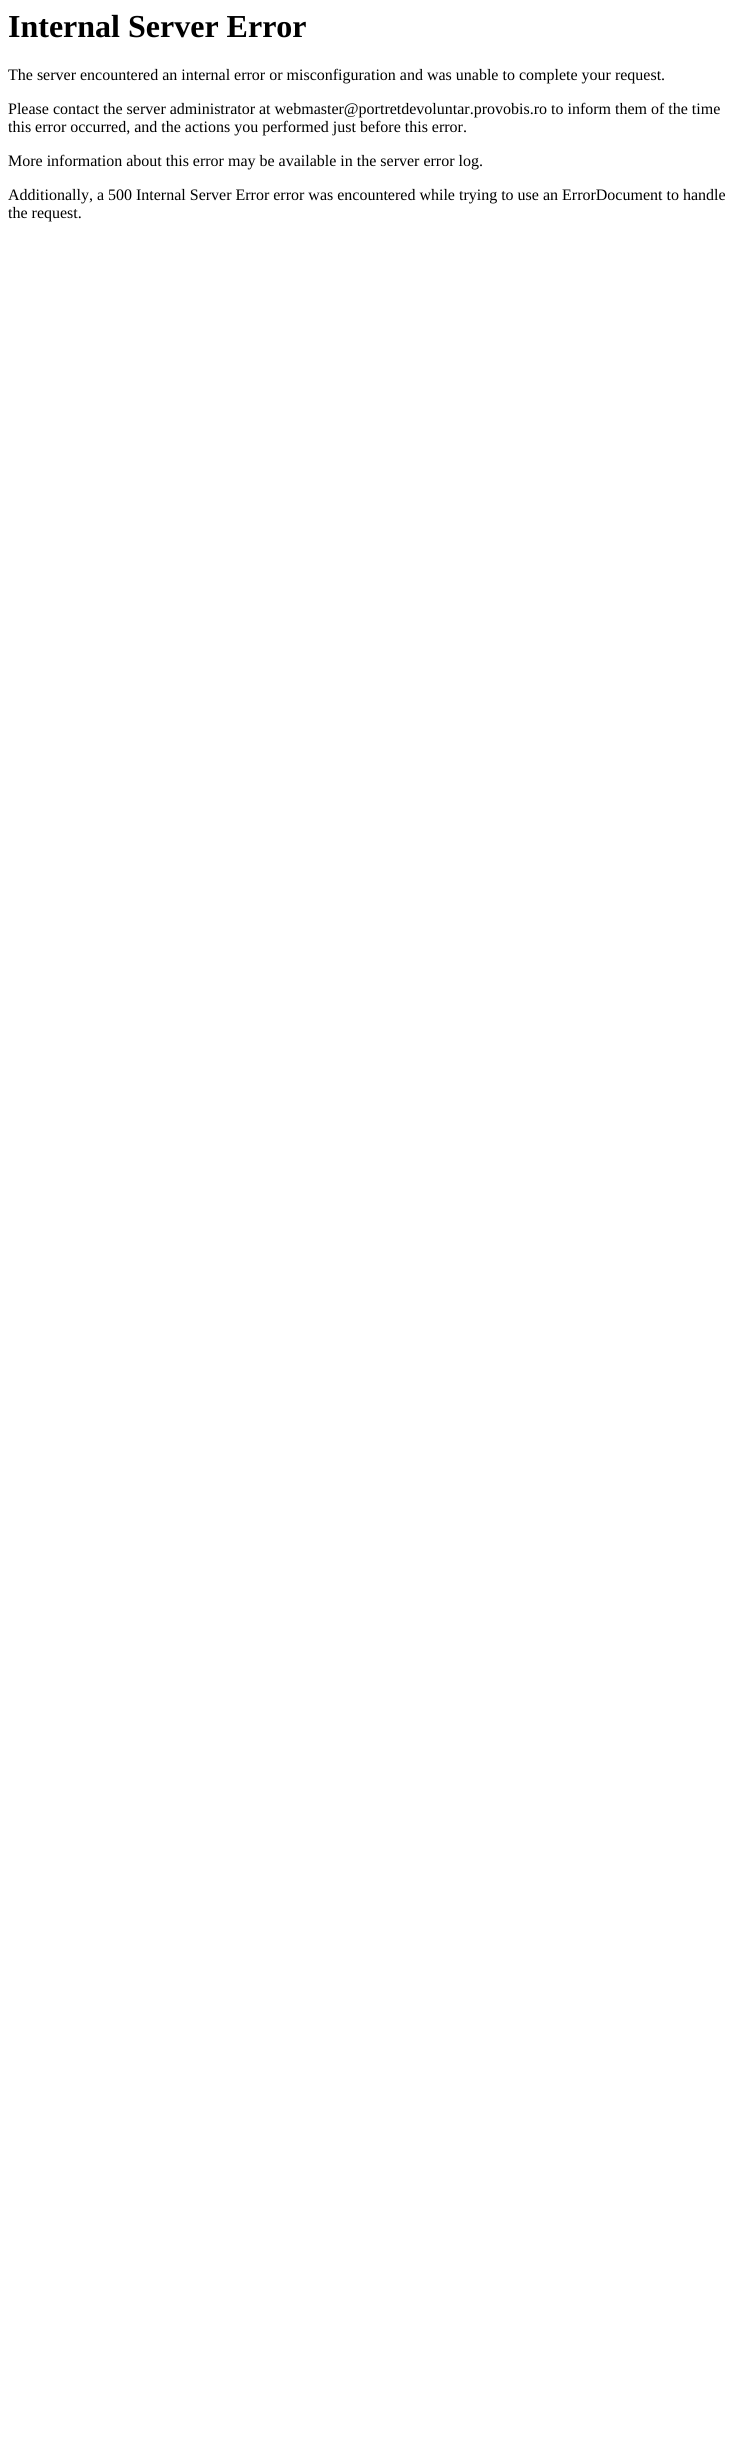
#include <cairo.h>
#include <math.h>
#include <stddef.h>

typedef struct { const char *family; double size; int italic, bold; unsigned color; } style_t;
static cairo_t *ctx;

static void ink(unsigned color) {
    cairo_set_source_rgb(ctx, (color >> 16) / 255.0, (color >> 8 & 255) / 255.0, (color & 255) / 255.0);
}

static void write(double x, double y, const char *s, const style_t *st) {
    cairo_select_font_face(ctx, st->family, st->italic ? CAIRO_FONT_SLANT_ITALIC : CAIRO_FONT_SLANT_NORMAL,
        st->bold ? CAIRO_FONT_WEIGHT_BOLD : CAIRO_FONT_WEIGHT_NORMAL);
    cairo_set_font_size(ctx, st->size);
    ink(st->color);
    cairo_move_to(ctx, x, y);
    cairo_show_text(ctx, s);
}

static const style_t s1 = {"Liberation Serif", 32, 0, 1, 0x000000};
static const style_t s2 = {"Liberation Serif", 16, 0, 0, 0x000000};

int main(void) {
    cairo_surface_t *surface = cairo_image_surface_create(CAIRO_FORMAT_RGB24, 738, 2460);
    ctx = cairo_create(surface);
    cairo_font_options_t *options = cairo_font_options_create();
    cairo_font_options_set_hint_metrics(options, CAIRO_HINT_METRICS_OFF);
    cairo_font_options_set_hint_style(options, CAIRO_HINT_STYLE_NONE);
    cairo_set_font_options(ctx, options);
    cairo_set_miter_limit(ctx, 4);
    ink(0xffffff);
    cairo_paint(ctx);
    write(8, 37, "Internal Server Error", &s1);
    write(8, 80, "The server encountered an internal error or misconfiguration and was unable to complete your request.", &s2);
    write(8, 114, "Please contact the server administrator at webmaster@portretdevoluntar.provobis.ro to inform them of the time", &s2);
    write(8, 132, "this error occurred, and the actions you performed just before this error.", &s2);
    write(8, 166, "More information about this error may be available in the server error log.", &s2);
    write(8, 200, "Additionally, a 500 Internal Server Error error was encountered while trying to use an ErrorDocument to handle", &s2);
    write(8, 218, "the request.", &s2);
    cairo_surface_write_to_png(surface, "screenshot.png");
    cairo_font_options_destroy(options);
    cairo_destroy(ctx);
    cairo_surface_destroy(surface);
    return 0;
}
